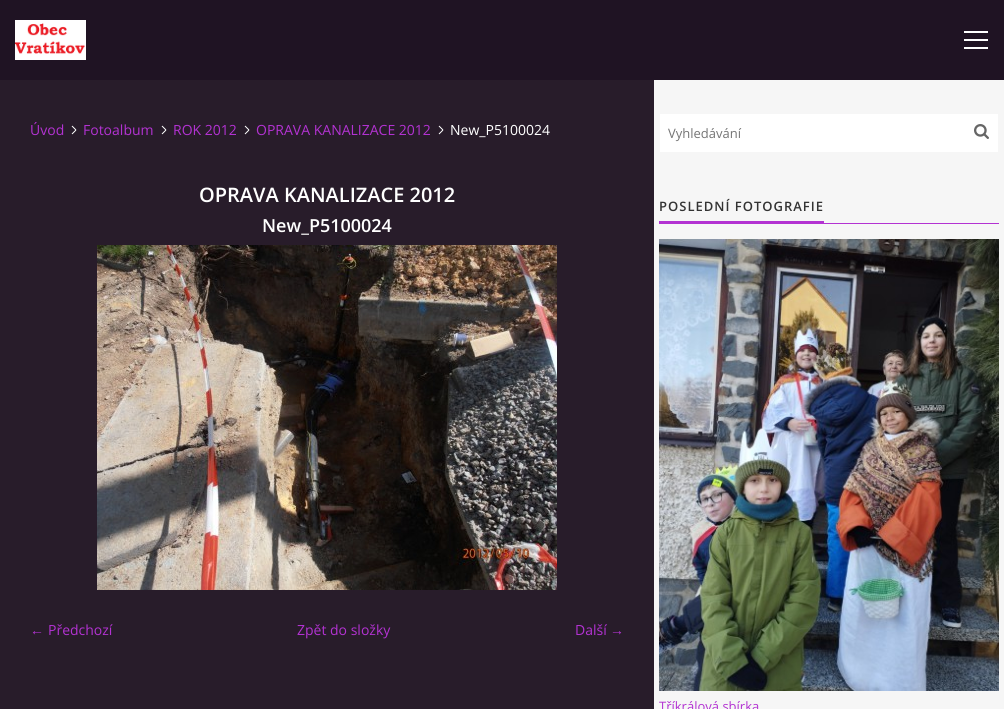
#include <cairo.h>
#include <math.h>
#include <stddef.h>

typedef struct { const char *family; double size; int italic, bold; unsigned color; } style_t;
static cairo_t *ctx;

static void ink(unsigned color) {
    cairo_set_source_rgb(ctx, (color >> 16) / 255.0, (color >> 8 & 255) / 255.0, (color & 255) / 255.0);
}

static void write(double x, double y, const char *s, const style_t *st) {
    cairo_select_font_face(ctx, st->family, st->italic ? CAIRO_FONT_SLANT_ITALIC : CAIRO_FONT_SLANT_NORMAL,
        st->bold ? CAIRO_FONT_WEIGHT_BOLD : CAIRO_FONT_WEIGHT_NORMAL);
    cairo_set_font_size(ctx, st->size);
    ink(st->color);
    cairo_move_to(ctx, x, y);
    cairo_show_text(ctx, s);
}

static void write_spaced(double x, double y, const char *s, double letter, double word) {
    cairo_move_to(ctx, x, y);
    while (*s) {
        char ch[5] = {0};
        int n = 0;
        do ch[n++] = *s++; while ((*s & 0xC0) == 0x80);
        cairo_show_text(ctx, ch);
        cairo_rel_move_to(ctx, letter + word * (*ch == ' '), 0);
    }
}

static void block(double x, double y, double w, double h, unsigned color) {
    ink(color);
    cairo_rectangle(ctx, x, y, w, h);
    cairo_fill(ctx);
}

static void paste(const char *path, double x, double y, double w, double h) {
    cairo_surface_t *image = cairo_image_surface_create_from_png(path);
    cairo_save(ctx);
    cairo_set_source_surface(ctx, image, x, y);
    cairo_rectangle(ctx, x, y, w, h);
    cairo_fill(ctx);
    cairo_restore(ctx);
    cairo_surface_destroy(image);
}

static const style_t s1 = {"Open Sans", 14, 0, 0, 0xb332d2};
static const style_t s2 = {"Open Sans", 14, 0, 0, 0xffffff};
static const style_t s3 = {"Open Sans SemiBold", 20, 0, 0, 0xffffff};
static const style_t s4 = {"Open Sans SemiBold", 18, 0, 0, 0xffffff};
static const style_t s5 = {"Liberation Serif", 14, 0, 0, 0xb332d2};
static const style_t s6 = {"Open Sans", 13, 0, 0, 0x757575};
static const style_t s7 = {"Open Sans", 13, 0, 0, 0xb332d2};

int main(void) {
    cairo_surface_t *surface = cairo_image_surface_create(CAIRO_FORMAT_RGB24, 1004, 709);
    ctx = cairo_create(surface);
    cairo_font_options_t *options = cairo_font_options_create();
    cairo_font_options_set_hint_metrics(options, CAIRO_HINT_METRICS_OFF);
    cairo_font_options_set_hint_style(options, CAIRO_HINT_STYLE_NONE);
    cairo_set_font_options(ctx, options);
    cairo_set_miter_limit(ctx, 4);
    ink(0x281c2a);
    cairo_paint(ctx);
    block(0, 0, 1004, 80, 0x1f1323);
    paste("pic1.png", 15, 20, 71, 40);
    paste("pic2.png", 964, 31, 24, 18);
    paste("pic3.png", 71, 125, 6, 10);
    write(30, 135, "Úvod", &s1);
    paste("pic3.png", 161, 125, 6, 10);
    write(83, 135, "Fotoalbum", &s1);
    paste("pic3.png", 244, 125, 6, 10);
    write(173, 135, "ROK 2012", &s1);
    paste("pic3.png", 438, 125, 6, 10);
    write(256, 135, "OPRAVA KANALIZACE 2012", &s1);
    write(450, 135, "New_P5100024", &s2);
    write(199, 202, "OPRAVA KANALIZACE 2012", &s3);
    write(262, 232, "New_P5100024", &s4);
    paste("pic4.png", 97, 245, 460, 345);
    write(30, 635, "←", &s5);
    write(48, 635, "Předchozí", &s1);
    write(297, 635, "Zpět do složky", &s1);
    write(575, 635, "Další", &s1);
    write(610, 635, "→", &s5);
    block(654, 80, 350, 629, 0xf6f6f6);
    block(660, 114, 338, 38, 0xffffff);
    write(668, 138, "Vyhledávání", &s6);
    paste("pic5.png", 974, 124, 15, 15);
    cairo_select_font_face(ctx, "Open Sans SemiBold", CAIRO_FONT_SLANT_NORMAL, CAIRO_FONT_WEIGHT_NORMAL);
    ink(0x333333);
    write_spaced(659, 211, "POSLEDNÍ FOTOGRAFIE", 1, 0);
    block(659, 221, 165, 2, 0xb332d2);
    block(659, 223, 340, 1, 0xb332d2);
    paste("pic6.png", 659, 239, 340, 452);
    write(659, 711, "Tříkrálová sbírka", &s7);
    cairo_surface_write_to_png(surface, "screenshot.png");
    cairo_font_options_destroy(options);
    cairo_destroy(ctx);
    cairo_surface_destroy(surface);
    return 0;
}
